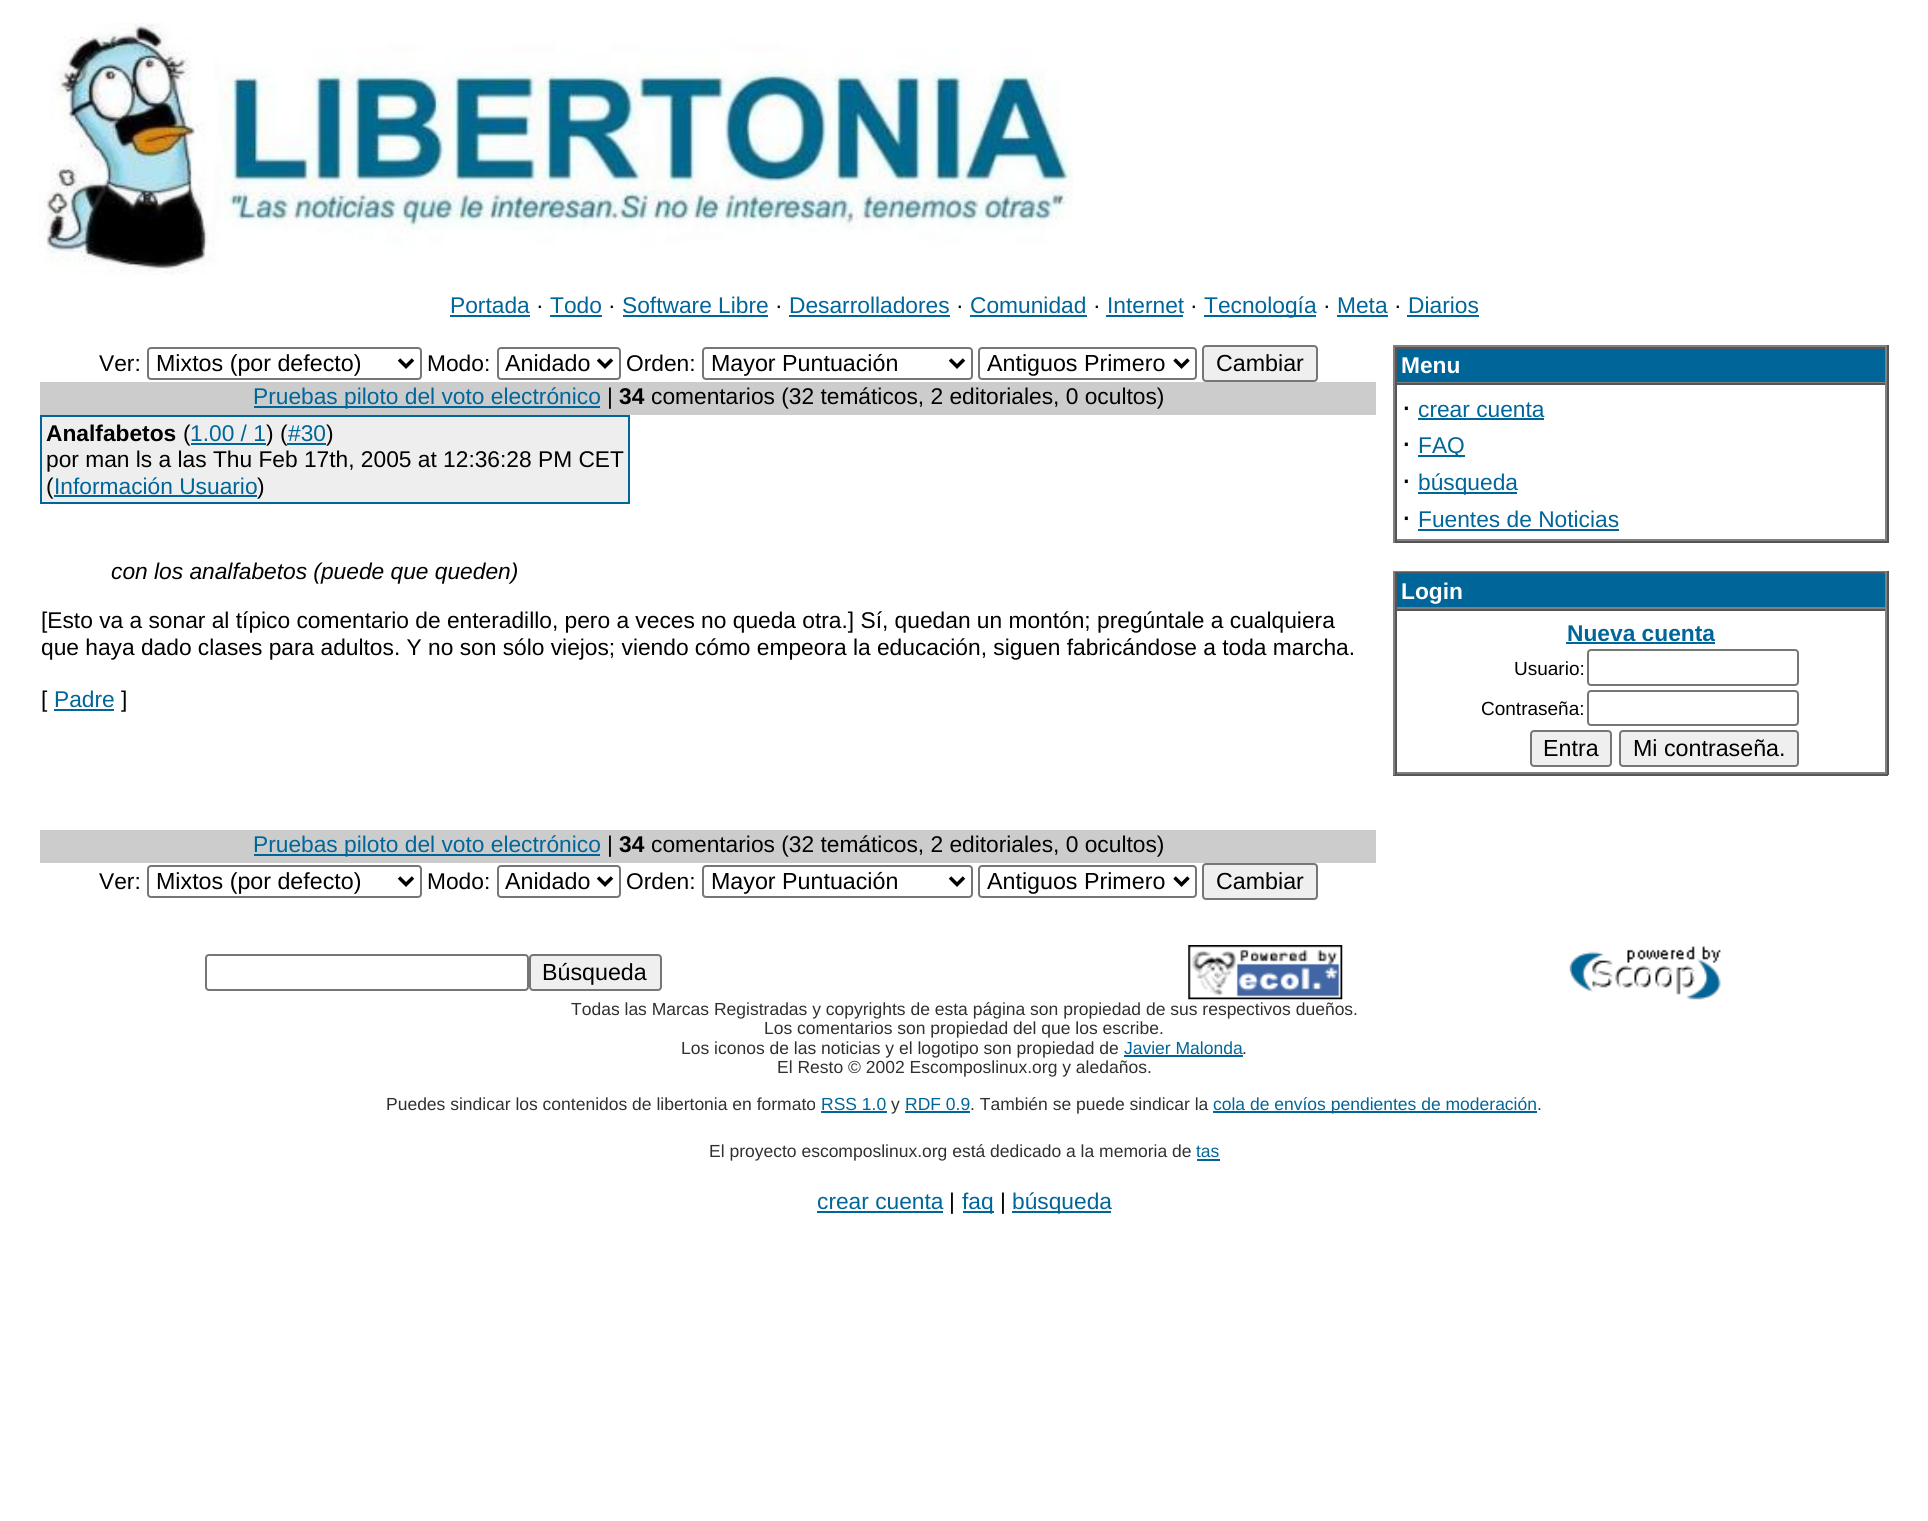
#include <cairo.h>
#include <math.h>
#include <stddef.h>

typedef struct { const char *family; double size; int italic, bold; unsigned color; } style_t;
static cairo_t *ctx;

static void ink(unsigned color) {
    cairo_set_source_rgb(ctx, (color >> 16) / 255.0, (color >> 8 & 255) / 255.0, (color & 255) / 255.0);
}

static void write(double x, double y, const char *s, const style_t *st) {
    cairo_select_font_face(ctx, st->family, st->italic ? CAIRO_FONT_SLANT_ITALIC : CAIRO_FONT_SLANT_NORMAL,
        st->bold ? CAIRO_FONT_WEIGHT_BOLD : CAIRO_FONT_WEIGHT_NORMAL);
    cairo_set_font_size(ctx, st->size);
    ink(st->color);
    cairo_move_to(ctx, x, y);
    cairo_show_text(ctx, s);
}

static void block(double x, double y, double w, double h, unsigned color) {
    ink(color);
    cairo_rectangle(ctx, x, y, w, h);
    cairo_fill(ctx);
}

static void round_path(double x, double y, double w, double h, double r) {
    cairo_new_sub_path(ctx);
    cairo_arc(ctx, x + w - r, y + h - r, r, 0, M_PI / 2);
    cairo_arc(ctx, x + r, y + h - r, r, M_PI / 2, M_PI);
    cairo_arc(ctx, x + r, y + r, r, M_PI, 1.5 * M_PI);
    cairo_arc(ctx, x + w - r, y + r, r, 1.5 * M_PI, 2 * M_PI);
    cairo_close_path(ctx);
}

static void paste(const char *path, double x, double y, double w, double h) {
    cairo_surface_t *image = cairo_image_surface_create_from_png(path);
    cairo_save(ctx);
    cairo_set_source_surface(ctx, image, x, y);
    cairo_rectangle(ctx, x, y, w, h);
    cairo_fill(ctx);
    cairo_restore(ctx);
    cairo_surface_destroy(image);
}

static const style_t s1 = {"Liberation Sans", 22.75, 0, 0, 0x006699};
static const style_t s2 = {"Liberation Sans", 22.75, 0, 0, 0x000000};
static const style_t s3 = {"Liberation Sans", 23.25, 0, 0, 0x000000};
static const style_t s4 = {"Liberation Sans", 22.75, 0, 1, 0x000000};
static const style_t s5 = {"Liberation Sans", 22.75, 1, 0, 0x000000};
static const style_t s6 = {"Liberation Sans", 22.75, 0, 1, 0xffffff};
static const style_t s7 = {"Liberation Sans", 32, 0, 0, 0x000000};
static const style_t s8 = {"Liberation Sans", 22.75, 0, 1, 0x006699};
static const style_t s9 = {"Liberation Sans", 19, 0, 0, 0x000000};
static const style_t s10 = {"Liberation Sans", 17.5, 0, 0, 0x303030};
static const style_t s11 = {"Liberation Sans", 17.5, 0, 0, 0x006699};

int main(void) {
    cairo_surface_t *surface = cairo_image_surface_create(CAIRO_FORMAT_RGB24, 1928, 1521);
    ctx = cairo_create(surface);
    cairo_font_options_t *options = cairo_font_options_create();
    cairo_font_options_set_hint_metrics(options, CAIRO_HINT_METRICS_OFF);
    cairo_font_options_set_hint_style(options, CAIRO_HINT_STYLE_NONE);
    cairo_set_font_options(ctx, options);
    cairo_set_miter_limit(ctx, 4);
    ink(0xffffff);
    cairo_paint(ctx);
    paste("pic1.png", 39, 23, 1034, 252);
    write(450, 313, "Portada", &s1);
    block(450, 315, 80, 2, 0x006699);
    write(536, 313, "·", &s2);
    write(550, 313, "Todo", &s1);
    block(550, 315, 52, 2, 0x006699);
    write(608, 313, "·", &s2);
    write(622, 313, "Software Libre", &s1);
    block(623, 315, 145, 2, 0x006699);
    write(775, 313, "·", &s2);
    write(789, 313, "Desarrolladores", &s1);
    block(789, 315, 161, 2, 0x006699);
    write(956, 313, "·", &s2);
    write(970, 313, "Comunidad", &s1);
    block(970, 315, 117, 2, 0x006699);
    write(1093, 313, "·", &s2);
    write(1107, 313, "Internet", &s1);
    block(1106, 315, 77, 2, 0x006699);
    write(1190, 313, "·", &s2);
    block(1204, 315, 112, 2, 0x006699);
    write(1204, 313, "Tecnología", &s1);
    write(1323, 313, "·", &s2);
    write(1337, 313, "Meta", &s1);
    block(1337, 315, 51, 2, 0x006699);
    write(1394, 313, "·", &s2);
    write(1408, 313, "Diarios", &s1);
    block(1407, 315, 72, 2, 0x006699);
    write(99, 371, "Ver:", &s2);
    round_path(148, 348, 273, 31, 3);
    ink(0x767676);
    cairo_stroke(ctx);
    cairo_new_path(ctx);
    cairo_move_to(ctx, 399, 359.5);
    cairo_line_to(ctx, 406, 366.5);
    cairo_line_to(ctx, 413, 359.5);
    ink(0x000000);
    cairo_set_line_width(ctx, 3.5);
    cairo_stroke(ctx);
    write(156, 371, "Mixtos (por defecto)", &s3);
    write(427, 371, "Modo:", &s2);
    round_path(498, 348, 122, 31, 3);
    ink(0x767676);
    cairo_set_line_width(ctx, 2);
    cairo_stroke(ctx);
    cairo_new_path(ctx);
    cairo_move_to(ctx, 598, 359.5);
    cairo_line_to(ctx, 605, 366.5);
    cairo_line_to(ctx, 612, 359.5);
    ink(0x000000);
    cairo_set_line_width(ctx, 3.5);
    cairo_stroke(ctx);
    write(505, 371, "Anidado", &s3);
    write(626, 371, "Orden:", &s2);
    round_path(703, 348, 269, 31, 3);
    ink(0x767676);
    cairo_set_line_width(ctx, 2);
    cairo_stroke(ctx);
    cairo_new_path(ctx);
    cairo_move_to(ctx, 950, 359.5);
    cairo_line_to(ctx, 957, 366.5);
    cairo_line_to(ctx, 964, 359.5);
    ink(0x000000);
    cairo_set_line_width(ctx, 3.5);
    cairo_stroke(ctx);
    write(711, 371, "Mayor Puntuación", &s3);
    round_path(979, 348, 217, 31, 3);
    ink(0x767676);
    cairo_set_line_width(ctx, 2);
    cairo_stroke(ctx);
    cairo_new_path(ctx);
    cairo_move_to(ctx, 1174.5, 359.5);
    cairo_line_to(ctx, 1181.5, 366.5);
    cairo_line_to(ctx, 1188.5, 359.5);
    ink(0x000000);
    cairo_set_line_width(ctx, 3.5);
    cairo_stroke(ctx);
    write(987, 371, "Antiguos Primero", &s3);
    ink(0xefefef);
    round_path(1203, 346, 114, 35, 3);
    cairo_fill_preserve(ctx);
    ink(0x767676);
    cairo_set_line_width(ctx, 2);
    cairo_stroke(ctx);
    write(1216, 371, "Cambiar", &s3);
    block(40, 382, 1336, 33, 0xcccccc);
    block(254, 406, 346, 2, 0x006699);
    write(253, 404, "Pruebas piloto del voto electrónico", &s1);
    write(607, 404, "|", &s2);
    write(619, 404, "34", &s4);
    write(651, 404, "comentarios (32 temáticos, 2 editoriales, 0 ocultos)", &s2);
    block(40, 415, 590, 89, 0x006699);
    block(42, 417, 586, 85, 0xeeeeee);
    write(46, 441, "Analfabetos", &s4);
    write(183, 441, "(", &s2);
    block(191, 443, 75, 2, 0x006699);
    write(190, 441, "1.00 / 1", &s1);
    write(266, 441, ") (", &s2);
    block(287, 443, 39, 2, 0x006699);
    write(288, 441, "#30", &s1);
    write(326, 441, ")", &s2);
    write(46, 467, "por man ls a las Thu Feb 17th, 2005 at 12:36:28 PM CET", &s2);
    write(46, 494, "(", &s2);
    block(54, 495, 203, 2, 0x006699);
    write(54, 494, "Información Usuario", &s1);
    write(257, 494, ")", &s2);
    write(111, 579, "con los analfabetos (puede que queden)", &s5);
    write(41, 628, "[Esto va a sonar al típico comentario de enteradillo, pero a veces no queda otra.] Sí, quedan un montón; pregúntale a cualquiera", &s2);
    write(41, 655, "que haya dado clases para adultos. Y no son sólo viejos; viendo cómo empeora la educación, siguen fabricándose a toda marcha.", &s2);
    write(41, 707, "[", &s2);
    write(54, 707, "Padre", &s1);
    block(54, 709, 60, 2, 0x006699);
    write(121, 707, "]", &s2);
    block(40, 830, 1336, 33, 0xcccccc);
    block(254, 854, 346, 2, 0x006699);
    write(253, 852, "Pruebas piloto del voto electrónico", &s1);
    write(607, 852, "|", &s2);
    write(619, 852, "34", &s4);
    write(651, 852, "comentarios (32 temáticos, 2 editoriales, 0 ocultos)", &s2);
    write(99, 889, "Ver:", &s2);
    round_path(148, 866, 273, 31, 3);
    ink(0x767676);
    cairo_stroke(ctx);
    cairo_new_path(ctx);
    cairo_move_to(ctx, 399, 877.5);
    cairo_line_to(ctx, 406, 884.5);
    cairo_line_to(ctx, 413, 877.5);
    ink(0x000000);
    cairo_set_line_width(ctx, 3.5);
    cairo_stroke(ctx);
    write(156, 889, "Mixtos (por defecto)", &s3);
    write(427, 889, "Modo:", &s2);
    round_path(498, 866, 122, 31, 3);
    ink(0x767676);
    cairo_set_line_width(ctx, 2);
    cairo_stroke(ctx);
    cairo_new_path(ctx);
    cairo_move_to(ctx, 598, 877.5);
    cairo_line_to(ctx, 605, 884.5);
    cairo_line_to(ctx, 612, 877.5);
    ink(0x000000);
    cairo_set_line_width(ctx, 3.5);
    cairo_stroke(ctx);
    write(505, 889, "Anidado", &s3);
    write(626, 889, "Orden:", &s2);
    round_path(703, 866, 269, 31, 3);
    ink(0x767676);
    cairo_set_line_width(ctx, 2);
    cairo_stroke(ctx);
    cairo_new_path(ctx);
    cairo_move_to(ctx, 950, 877.5);
    cairo_line_to(ctx, 957, 884.5);
    cairo_line_to(ctx, 964, 877.5);
    ink(0x000000);
    cairo_set_line_width(ctx, 3.5);
    cairo_stroke(ctx);
    write(711, 889, "Mayor Puntuación", &s3);
    round_path(979, 866, 217, 31, 3);
    ink(0x767676);
    cairo_set_line_width(ctx, 2);
    cairo_stroke(ctx);
    cairo_new_path(ctx);
    cairo_move_to(ctx, 1174.5, 877.5);
    cairo_line_to(ctx, 1181.5, 884.5);
    cairo_line_to(ctx, 1188.5, 877.5);
    ink(0x000000);
    cairo_set_line_width(ctx, 3.5);
    cairo_stroke(ctx);
    write(987, 889, "Antiguos Primero", &s3);
    ink(0xefefef);
    round_path(1203, 864, 114, 35, 3);
    cairo_fill_preserve(ctx);
    ink(0x767676);
    cairo_set_line_width(ctx, 2);
    cairo_stroke(ctx);
    write(1216, 889, "Cambiar", &s3);
    block(1393, 345, 495, 2, 0x808080);
    block(1887, 345, 2, 198, 0x555555);
    block(1393, 541, 495, 2, 0x555555);
    block(1393, 345, 2, 198, 0x808080);
    block(1397, 349, 488, 33, 0x006699);
    block(1395, 347, 492, 2, 0x555555);
    block(1885, 347, 2, 36, 0x808080);
    block(1395, 382, 492, 1, 0x808080);
    block(1395, 347, 2, 36, 0x555555);
    write(1401, 373, "Menu", &s6);
    block(1395, 383, 492, 2, 0x555555);
    block(1885, 383, 2, 158, 0x808080);
    block(1395, 539, 492, 2, 0x808080);
    block(1395, 383, 2, 158, 0x555555);
    write(1401, 417, "·", &s7);
    write(1418, 417, "crear cuenta", &s1);
    block(1418, 418, 126, 2, 0x006699);
    write(1401, 453, "·", &s7);
    block(1418, 455, 47, 2, 0x006699);
    write(1418, 453, "FAQ", &s1);
    write(1401, 490, "·", &s7);
    block(1418, 492, 99, 2, 0x006699);
    write(1418, 490, "búsqueda", &s1);
    write(1401, 527, "·", &s7);
    write(1418, 527, "Fuentes de Noticias", &s1);
    block(1418, 529, 201, 2, 0x006699);
    block(1393, 571, 495, 1, 0x808080);
    block(1887, 571, 2, 204, 0x555555);
    block(1393, 774, 495, 2, 0x555555);
    block(1393, 571, 2, 204, 0x808080);
    block(1397, 574, 488, 33, 0x006699);
    block(1395, 572, 492, 2, 0x555555);
    block(1885, 572, 2, 37, 0x808080);
    block(1395, 607, 492, 2, 0x808080);
    block(1395, 572, 2, 37, 0x555555);
    write(1401, 599, "Login", &s6);
    block(1395, 609, 492, 2, 0x555555);
    block(1885, 609, 2, 165, 0x808080);
    block(1395, 772, 492, 2, 0x808080);
    block(1395, 609, 2, 165, 0x555555);
    write(1567, 641, "Nueva cuenta", &s8);
    block(1566, 642, 149, 2, 0x006699);
    write(1514, 675, "Usuario:", &s9);
    round_path(1588, 650, 210, 35, 3);
    ink(0x767676);
    cairo_stroke(ctx);
    write(1481, 715, "Contraseña:", &s9);
    round_path(1588, 691, 210, 34, 3);
    ink(0x767676);
    cairo_stroke(ctx);
    ink(0xefefef);
    round_path(1531, 731, 80, 35, 3);
    cairo_fill_preserve(ctx);
    ink(0x767676);
    cairo_stroke(ctx);
    write(1543, 756, "Entra", &s3);
    ink(0xefefef);
    round_path(1620, 731, 178, 35, 3);
    cairo_fill_preserve(ctx);
    ink(0x767676);
    cairo_stroke(ctx);
    write(1633, 756, "Mi contraseña.", &s3);
    round_path(206, 955, 322, 35, 3);
    ink(0x767676);
    cairo_stroke(ctx);
    ink(0xefefef);
    round_path(530, 955, 131, 35, 3);
    cairo_fill_preserve(ctx);
    ink(0x767676);
    cairo_stroke(ctx);
    write(542, 980, "Búsqueda", &s3);
    paste("pic2.png", 1188, 945, 155, 55);
    paste("pic3.png", 1569, 946, 152, 54);
    write(571, 1015, "Todas las Marcas Registradas y copyrights de esta página son propiedad de sus respectivos dueños.", &s10);
    write(764, 1034, "Los comentarios son propiedad del que los escribe.", &s10);
    write(681, 1054, "Los iconos de las noticias y el logotipo son propiedad de", &s10);
    write(1124, 1054, "Javier Malonda", &s11);
    block(1124, 1055, 119, 2, 0x006699);
    write(1242, 1054, ".", &s10);
    write(777, 1073, "El Resto © 2002 Escomposlinux.org y aledaños.", &s10);
    write(386, 1110, "Puedes sindicar los contenidos de libertonia en formato", &s10);
    write(821, 1110, "RSS 1.0", &s11);
    block(821, 1111, 66, 2, 0x006699);
    write(891, 1110, "y", &s10);
    write(905, 1110, "RDF 0.9", &s11);
    block(905, 1111, 65, 2, 0x006699);
    write(970, 1110, ". También se puede sindicar la", &s10);
    block(1213, 1111, 324, 2, 0x006699);
    write(1213, 1110, "cola de envíos pendientes de moderación", &s11);
    write(1537, 1110, ".", &s10);
    write(709, 1157, "El proyecto escomposlinux.org está dedicado a la memoria de", &s10);
    write(1196, 1157, "tas", &s11);
    block(1197, 1159, 23, 2, 0x006699);
    write(817, 1209, "crear cuenta", &s1);
    block(817, 1211, 126, 2, 0x006699);
    write(949, 1209, "|", &s2);
    block(963, 1211, 31, 2, 0x006699);
    write(962, 1209, "faq", &s1);
    write(1000, 1209, "|", &s2);
    block(1012, 1211, 99, 2, 0x006699);
    write(1012, 1209, "búsqueda", &s1);
    cairo_surface_write_to_png(surface, "screenshot.png");
    cairo_font_options_destroy(options);
    cairo_destroy(ctx);
    cairo_surface_destroy(surface);
    return 0;
}
